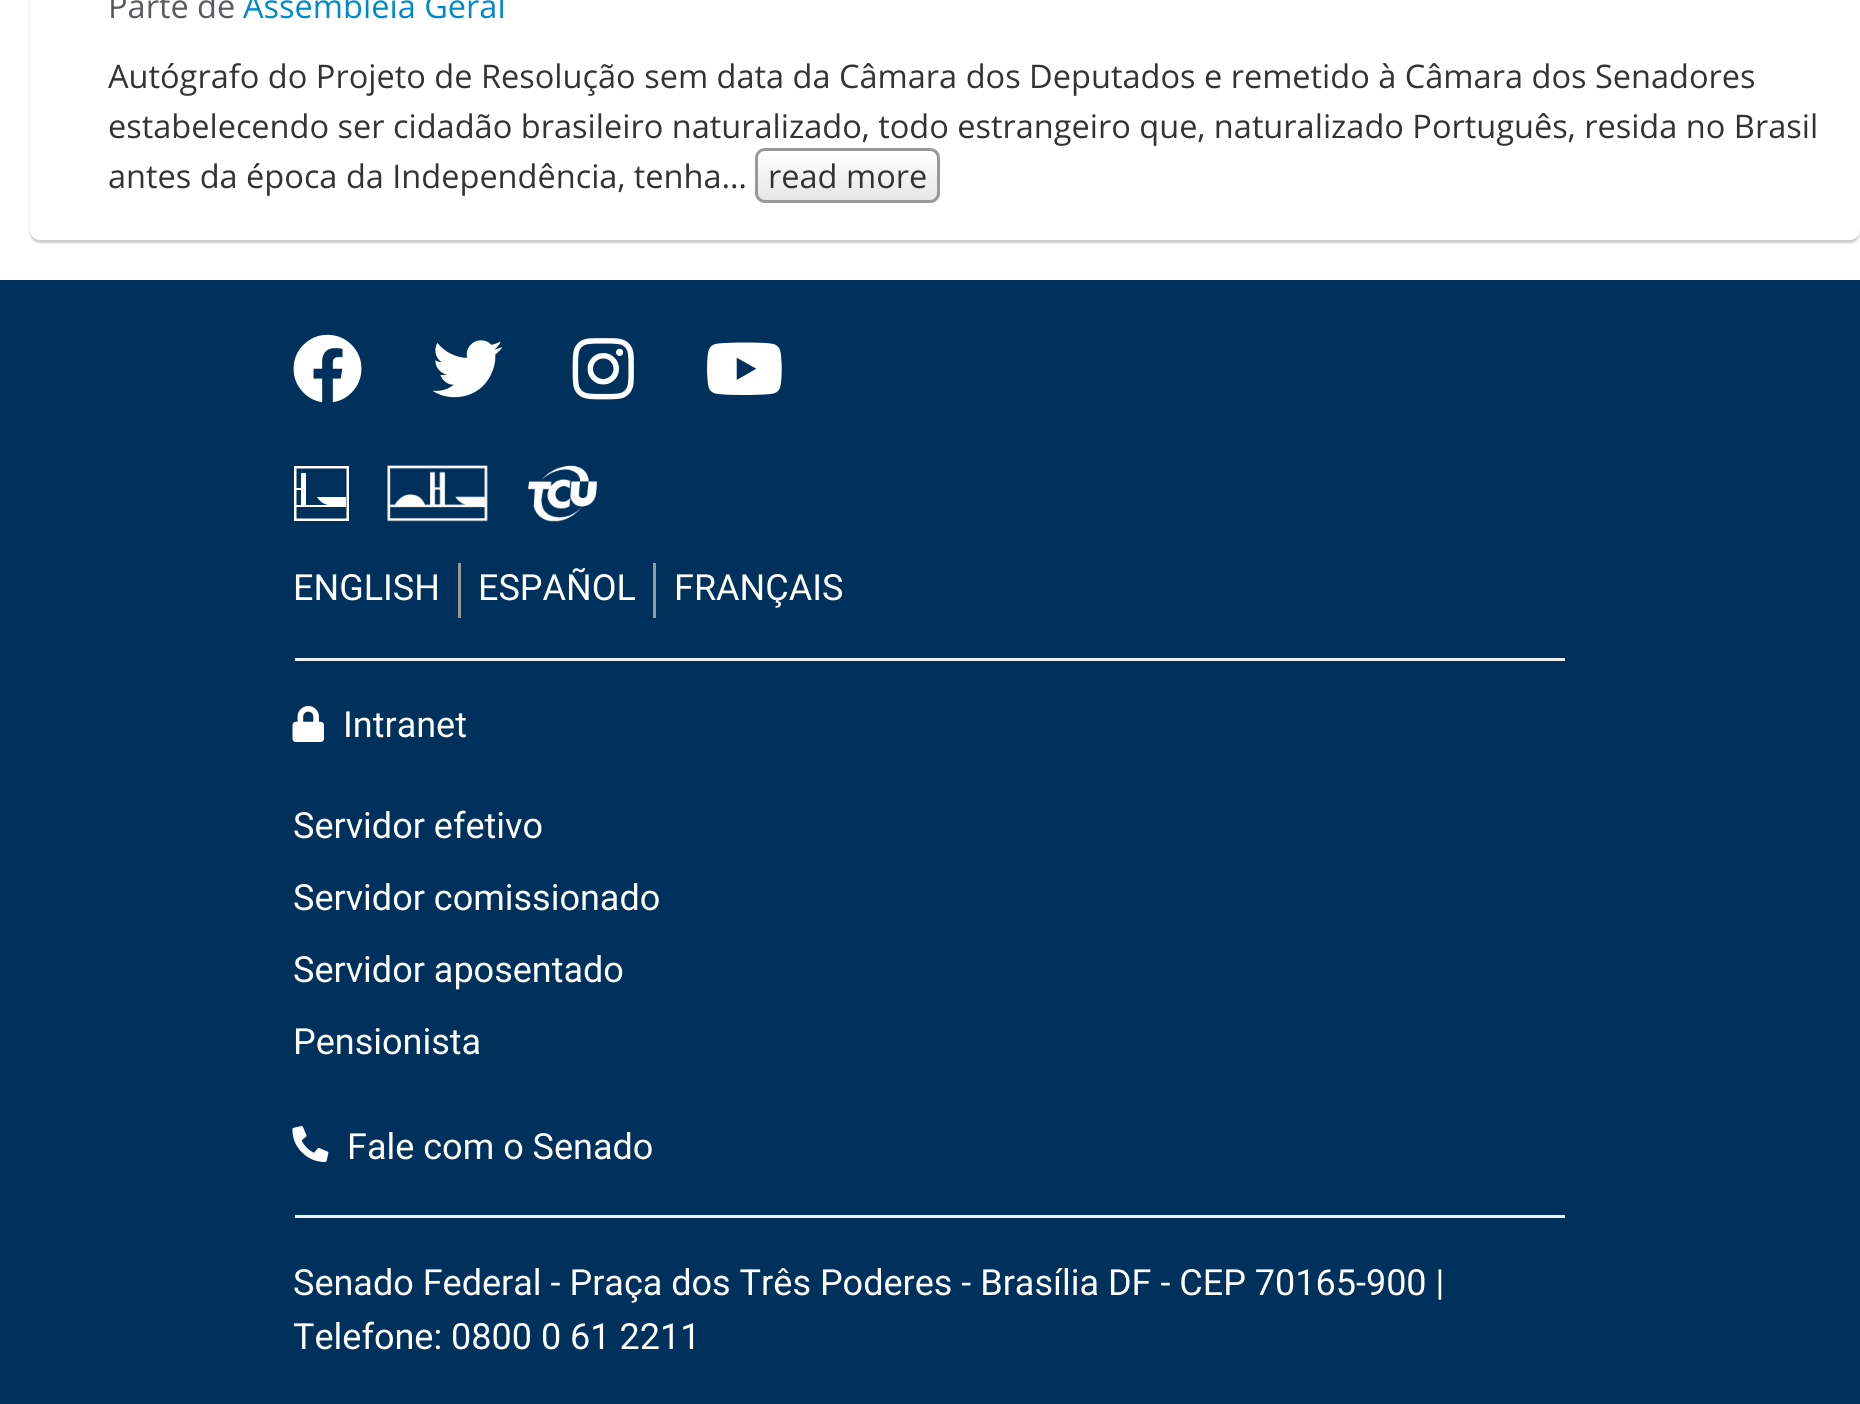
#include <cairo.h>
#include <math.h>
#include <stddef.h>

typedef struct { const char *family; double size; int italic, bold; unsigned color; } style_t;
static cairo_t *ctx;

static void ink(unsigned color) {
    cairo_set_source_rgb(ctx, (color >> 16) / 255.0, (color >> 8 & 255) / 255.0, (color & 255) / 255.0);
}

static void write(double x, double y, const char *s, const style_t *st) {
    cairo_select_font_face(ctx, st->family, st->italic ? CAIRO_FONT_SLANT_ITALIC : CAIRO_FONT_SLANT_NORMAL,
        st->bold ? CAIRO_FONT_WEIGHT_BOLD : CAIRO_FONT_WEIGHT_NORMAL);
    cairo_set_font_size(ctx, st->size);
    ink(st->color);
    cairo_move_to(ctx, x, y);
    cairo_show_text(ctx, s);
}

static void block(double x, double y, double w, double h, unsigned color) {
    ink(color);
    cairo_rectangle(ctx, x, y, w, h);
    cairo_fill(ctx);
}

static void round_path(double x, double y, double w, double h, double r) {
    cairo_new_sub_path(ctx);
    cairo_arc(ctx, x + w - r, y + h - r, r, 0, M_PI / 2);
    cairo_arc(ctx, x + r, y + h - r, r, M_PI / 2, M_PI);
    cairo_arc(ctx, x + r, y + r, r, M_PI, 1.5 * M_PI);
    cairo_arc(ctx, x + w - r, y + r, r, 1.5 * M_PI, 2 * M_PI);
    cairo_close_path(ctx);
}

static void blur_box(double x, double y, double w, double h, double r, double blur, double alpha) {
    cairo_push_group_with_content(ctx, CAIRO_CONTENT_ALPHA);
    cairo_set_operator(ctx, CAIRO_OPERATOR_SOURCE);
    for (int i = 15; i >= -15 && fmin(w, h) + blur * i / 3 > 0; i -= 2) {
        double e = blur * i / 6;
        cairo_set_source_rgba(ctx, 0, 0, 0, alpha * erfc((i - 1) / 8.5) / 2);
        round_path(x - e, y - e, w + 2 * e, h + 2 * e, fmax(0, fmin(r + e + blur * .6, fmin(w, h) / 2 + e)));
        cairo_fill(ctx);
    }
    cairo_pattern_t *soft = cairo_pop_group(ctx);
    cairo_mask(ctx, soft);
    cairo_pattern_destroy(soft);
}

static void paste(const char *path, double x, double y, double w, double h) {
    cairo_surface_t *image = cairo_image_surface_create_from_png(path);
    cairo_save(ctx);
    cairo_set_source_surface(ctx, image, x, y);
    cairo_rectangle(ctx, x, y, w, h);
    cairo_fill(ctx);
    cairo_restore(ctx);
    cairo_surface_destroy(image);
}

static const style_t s1 = {"Open Sans", 32.5, 0, 0, 0x595c5f};
static const style_t s2 = {"Open Sans", 32.5, 0, 0, 0x0088cc};
static const style_t s3 = {"Open Sans", 32.5, 0, 0, 0x333333};
static const style_t s4 = {"Roboto", 36, 0, 0, 0xffffff};

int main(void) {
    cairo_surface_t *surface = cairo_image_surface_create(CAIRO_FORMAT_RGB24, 1860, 1404);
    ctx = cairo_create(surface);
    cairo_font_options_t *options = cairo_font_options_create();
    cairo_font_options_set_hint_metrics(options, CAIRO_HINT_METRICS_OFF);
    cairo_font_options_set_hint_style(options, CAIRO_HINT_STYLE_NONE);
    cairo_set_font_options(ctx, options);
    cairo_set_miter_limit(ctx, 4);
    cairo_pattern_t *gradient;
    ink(0xffffff);
    cairo_paint(ctx);
    ink(0x000000);
    blur_box(30, -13, 1830, 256, 10, 1, 0.2);
    ink(0xffffff);
    round_path(30, -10, 1830, 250, 10);
    cairo_fill(ctx);
    write(108, 18, "Parte de", &s1);
    write(243, 18, "Assembléia Geral", &s2);
    write(108, 88, "Autógrafo do Projeto de Resolução sem data da Câmara dos Deputados e remetido à Câmara dos Senadores", &s3);
    write(108, 138, "estabelecendo ser cidadão brasileiro naturalizado, todo estrangeiro que, naturalizado Português, resida no Brasil", &s3);
    write(108, 188, "antes da época da Independência, tenha…", &s3);
    cairo_save(ctx);
    round_path(755, 148, 185, 55, 10);
    cairo_clip(ctx);
    gradient = cairo_pattern_create_linear(848, 150, 848, 200);
    cairo_pattern_add_color_stop_rgba(gradient, 0, 1, 1, 1, 1);
    cairo_pattern_add_color_stop_rgba(gradient, 1, 0.902, 0.902, 0.902, 1);
    cairo_set_source(ctx, gradient);
    cairo_pattern_destroy(gradient);
    cairo_rectangle(ctx, 755, 150, 185, 50);
    cairo_fill(ctx);
    cairo_restore(ctx);
    round_path(756.5, 149.5, 182, 52, 8.5);
    ink(0x999999);
    cairo_set_line_width(ctx, 3);
    cairo_stroke(ctx);
    write(768, 188, "read more", &s3);
    block(0, 280, 1860, 1124, 0x00305c);
    paste("pic1.png", 293, 334, 69, 69);
    paste("pic2.png", 432, 340, 71, 58);
    paste("pic3.png", 572, 338, 62, 62);
    paste("pic4.png", 707, 342, 75, 53);
    cairo_rectangle(ctx, 295.25, 467.25, 52.5, 52.5);
    ink(0xffffff);
    cairo_set_line_width(ctx, 2.5);
    cairo_stroke(ctx);
    cairo_new_path(ctx);
    cairo_move_to(ctx, 301, 507);
    cairo_line_to(ctx, 301, 473);
    cairo_line_to(ctx, 306, 473);
    cairo_line_to(ctx, 306, 505);
    cairo_line_to(ctx, 328, 505);
    cairo_curve_to(ctx, 328, 505, 321, 504, 317, 497);
    cairo_line_to(ctx, 346, 497);
    cairo_line_to(ctx, 346, 507);
    cairo_close_path(ctx);
    cairo_fill(ctx);
    block(296, 488, 5, 2, 0xffffff);
    block(296, 505, 5, 2, 0xffffff);
    paste("pic5.png", 387, 465, 101, 57);
    paste("pic6.png", 527, 465, 71, 57);
    write(293, 600, "ENGLISH", &s4);
    block(458, 563, 3, 55, 0x999999);
    write(478, 600, "ESPAÑOL", &s4);
    block(653, 563, 3, 55, 0x999999);
    write(674, 600, "FRANÇAIS", &s4);
    block(295, 658, 1270, 3, 0xf1f1f1);
    paste("pic7.png", 292, 706, 32, 36);
    write(343, 737, "Intranet", &s4);
    write(293, 838, "Servidor efetivo", &s4);
    write(293, 910, "Servidor comissionado", &s4);
    write(293, 982, "Servidor aposentado", &s4);
    write(293, 1054, "Pensionista", &s4);
    paste("pic8.png", 292, 1126, 37, 36);
    write(347, 1159, "Fale com o Senado", &s4);
    block(295, 1215, 1270, 3, 0xf1f1f1);
    write(293, 1295, "Senado Federal - Praça dos Três Poderes - Brasília DF - CEP 70165-900 |", &s4);
    write(293, 1349, "Telefone: 0800 0 61 2211", &s4);
    cairo_surface_write_to_png(surface, "screenshot.png");
    cairo_font_options_destroy(options);
    cairo_destroy(ctx);
    cairo_surface_destroy(surface);
    return 0;
}
